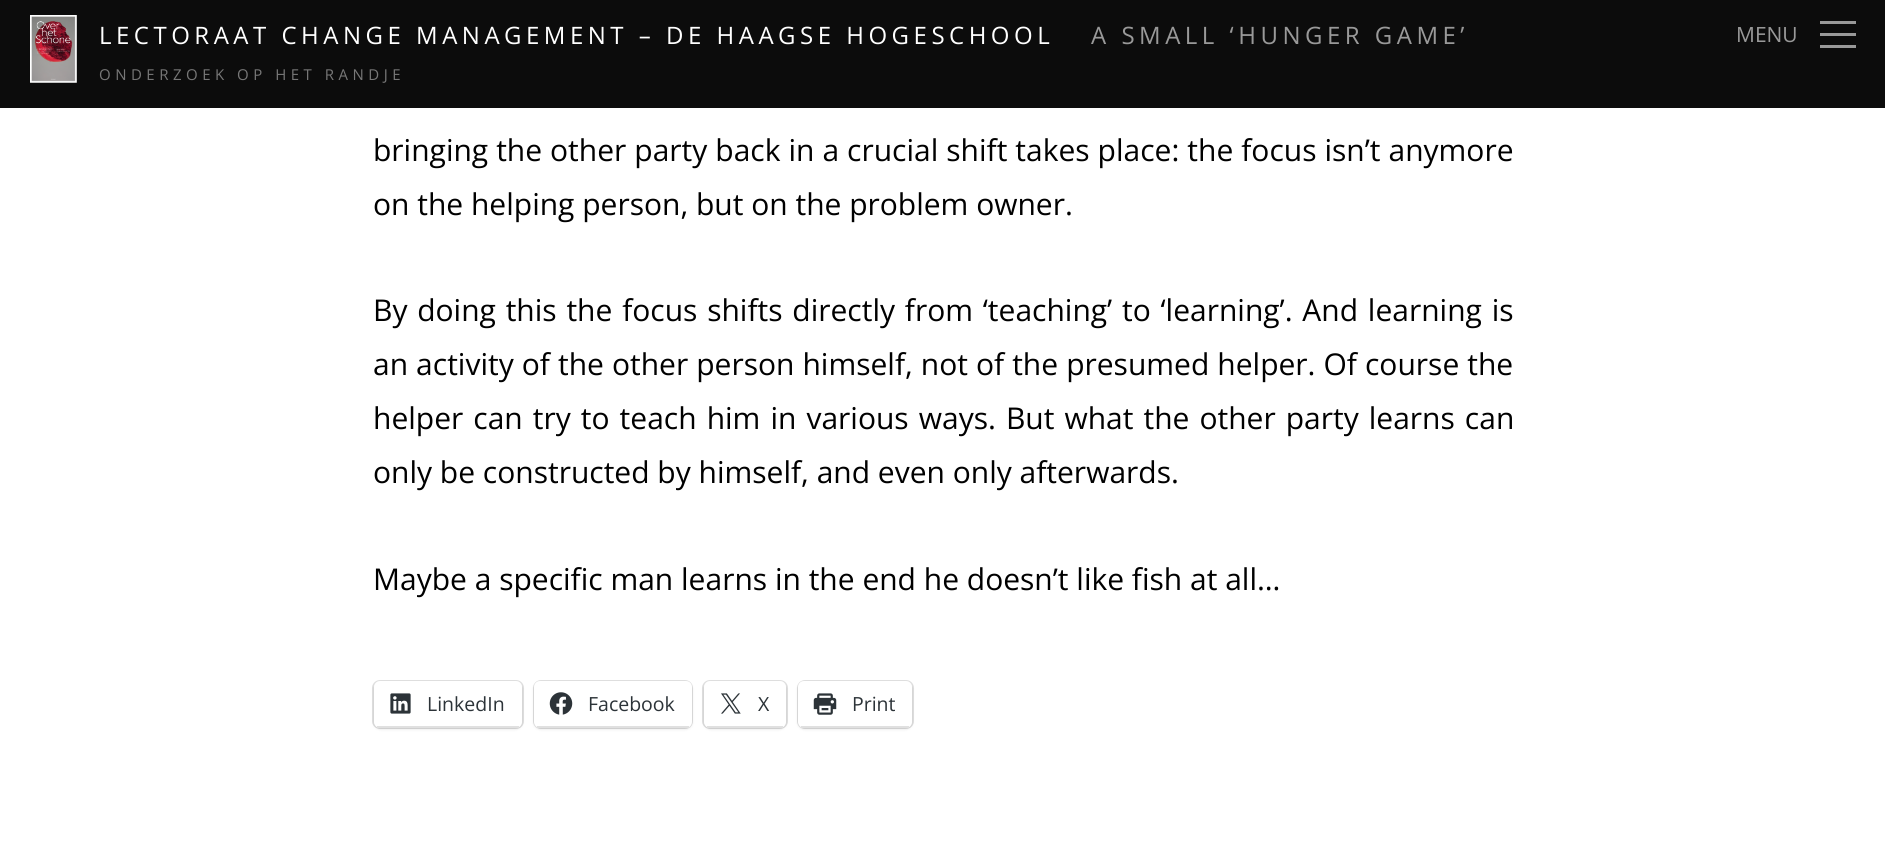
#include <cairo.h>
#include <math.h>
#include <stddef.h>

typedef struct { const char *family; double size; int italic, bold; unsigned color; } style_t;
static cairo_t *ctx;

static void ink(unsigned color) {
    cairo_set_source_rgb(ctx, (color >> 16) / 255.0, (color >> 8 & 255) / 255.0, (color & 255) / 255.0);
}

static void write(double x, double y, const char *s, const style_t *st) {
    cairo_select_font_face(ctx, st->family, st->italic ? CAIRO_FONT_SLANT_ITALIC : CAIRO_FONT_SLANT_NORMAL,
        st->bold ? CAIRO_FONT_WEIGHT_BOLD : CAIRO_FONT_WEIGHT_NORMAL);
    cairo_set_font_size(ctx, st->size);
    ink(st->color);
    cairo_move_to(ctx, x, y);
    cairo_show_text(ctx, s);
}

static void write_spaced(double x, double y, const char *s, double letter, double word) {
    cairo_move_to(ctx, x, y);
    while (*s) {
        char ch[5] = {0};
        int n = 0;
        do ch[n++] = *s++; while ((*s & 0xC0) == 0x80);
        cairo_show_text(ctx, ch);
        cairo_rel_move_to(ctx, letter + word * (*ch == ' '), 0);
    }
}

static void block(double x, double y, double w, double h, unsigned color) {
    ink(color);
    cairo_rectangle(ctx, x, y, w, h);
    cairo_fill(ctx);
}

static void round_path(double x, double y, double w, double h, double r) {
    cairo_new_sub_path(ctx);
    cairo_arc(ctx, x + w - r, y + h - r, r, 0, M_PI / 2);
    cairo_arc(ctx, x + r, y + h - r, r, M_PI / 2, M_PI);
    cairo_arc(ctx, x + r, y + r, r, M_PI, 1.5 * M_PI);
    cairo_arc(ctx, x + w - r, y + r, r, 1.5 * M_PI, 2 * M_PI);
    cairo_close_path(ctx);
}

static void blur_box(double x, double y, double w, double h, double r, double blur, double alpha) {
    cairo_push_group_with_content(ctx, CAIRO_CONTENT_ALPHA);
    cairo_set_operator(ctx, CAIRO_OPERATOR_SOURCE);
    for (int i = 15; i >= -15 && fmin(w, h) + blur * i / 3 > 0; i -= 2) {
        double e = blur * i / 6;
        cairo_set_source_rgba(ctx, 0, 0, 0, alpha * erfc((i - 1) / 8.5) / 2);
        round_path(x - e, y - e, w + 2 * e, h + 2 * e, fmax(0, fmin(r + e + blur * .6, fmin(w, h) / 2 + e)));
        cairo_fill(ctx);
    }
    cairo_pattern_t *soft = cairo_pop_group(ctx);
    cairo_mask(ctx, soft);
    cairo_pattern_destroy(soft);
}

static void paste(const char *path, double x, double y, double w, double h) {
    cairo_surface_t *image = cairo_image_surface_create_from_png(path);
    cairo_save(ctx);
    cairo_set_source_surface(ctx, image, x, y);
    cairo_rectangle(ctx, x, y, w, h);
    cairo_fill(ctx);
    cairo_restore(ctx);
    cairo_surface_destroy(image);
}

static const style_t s1 = {"Open Sans", 21, 0, 0, 0x999999};
static const style_t s2 = {"Open Sans", 30, 0, 0, 0x000000};
static const style_t s3 = {"Open Sans", 19.5, 0, 0, 0x2c3338};

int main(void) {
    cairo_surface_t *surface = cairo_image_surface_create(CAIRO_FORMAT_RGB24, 1885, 868);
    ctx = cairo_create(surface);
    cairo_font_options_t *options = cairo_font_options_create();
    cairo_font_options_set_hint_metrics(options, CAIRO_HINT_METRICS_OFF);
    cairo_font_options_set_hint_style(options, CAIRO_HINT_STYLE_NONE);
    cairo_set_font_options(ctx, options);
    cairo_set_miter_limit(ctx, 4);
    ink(0xffffff);
    cairo_paint(ctx);
    cairo_set_source_rgba(ctx, 0, 0, 0, 0.95);
    cairo_rectangle(ctx, 0, 0, 1885, 108);
    cairo_fill(ctx);
    paste("pic1.png", 30, 15, 47, 68);
    cairo_select_font_face(ctx, "Open Sans", CAIRO_FONT_SLANT_NORMAL, CAIRO_FONT_WEIGHT_NORMAL);
    cairo_set_font_size(ctx, 24);
    ink(0xffffff);
    write_spaced(99, 44, "LECTORAAT CHANGE MANAGEMENT – DE HAAGSE HOGESCHOOL", 4.5, 0);
    ink(0x999999);
    write_spaced(1091, 44, "A SMALL ‘HUNGER GAME’", 4.5, 0);
    cairo_set_font_size(ctx, 15);
    ink(0x777777);
    write_spaced(99, 80, "ONDERZOEK OP HET RANDJE", 4.5, 0);
    write(1736, 42, "MENU", &s1);
    block(1820, 21, 36, 3, 0x999999);
    block(1820, 33, 36, 3, 0x999999);
    block(1820, 45, 36, 3, 0x999999);
    cairo_set_font_size(ctx, 30);
    ink(0x000000);
    write_spaced(373, 161, "bringing the other party back in a crucial shift takes place: the focus isn’t anymore", 0, 0.2);
    write(373, 215, "on the helping person, but on the problem owner.", &s2);
    write_spaced(373, 321, "By doing this the focus shifts directly from ‘teaching’ to ‘learning’. And learning is", 0, 2);
    write_spaced(373, 375, "an activity of the other person himself, not of the presumed helper. Of course the", 0, 0.25);
    write_spaced(373, 429, "helper can try to teach him in various ways. But what the other party learns can", 0, 2.25);
    write(373, 483, "only be constructed by himself, and even only afterwards.", &s2);
    write(373, 590, "Maybe a specific man learns in the end he doesn’t like fish at all…", &s2);
    round_path(373, 681, 150, 47, 7);
    ink(0xe0e0e0);
    cairo_stroke(ctx);
    ink(0x000000);
    blur_box(374, 683, 148, 46, 6, 1.5, 0.12);
    ink(0xffffff);
    round_path(374, 681, 148, 47, 6);
    cairo_fill(ctx);
    block(377, 726, 142, 2, 0xe0e0e0);
    paste("pic2.png", 390, 693, 21, 21);
    write(427, 711, "LinkedIn", &s3);
    round_path(534, 681, 158, 47, 7);
    ink(0xe0e0e0);
    cairo_stroke(ctx);
    ink(0x000000);
    blur_box(534, 683, 158, 46, 6, 1.5, 0.12);
    ink(0xffffff);
    round_path(534, 681, 158, 47, 6);
    cairo_fill(ctx);
    block(537, 726, 152, 2, 0xe0e0e0);
    paste("pic3.png", 549, 692, 24, 23);
    write(588, 711, "Facebook", &s3);
    round_path(703, 681, 84, 47, 7);
    ink(0xe0e0e0);
    cairo_stroke(ctx);
    ink(0x000000);
    blur_box(704, 683, 82, 46, 6, 1.5, 0.12);
    ink(0xffffff);
    round_path(704, 681, 82, 47, 6);
    cairo_fill(ctx);
    block(707, 726, 76, 2, 0xe0e0e0);
    paste("pic4.png", 721, 693, 20, 21);
    write(758, 711, "X", &s3);
    round_path(798, 681, 115, 47, 7);
    ink(0xe0e0e0);
    cairo_stroke(ctx);
    ink(0x000000);
    blur_box(798, 683, 114, 46, 6, 1.5, 0.12);
    ink(0xffffff);
    round_path(798, 681, 114, 47, 6);
    cairo_fill(ctx);
    block(801, 726, 108, 2, 0xe0e0e0);
    paste("pic5.png", 813, 693, 24, 22);
    write(852, 711, "Print", &s3);
    cairo_surface_write_to_png(surface, "screenshot.png");
    cairo_font_options_destroy(options);
    cairo_destroy(ctx);
    cairo_surface_destroy(surface);
    return 0;
}
